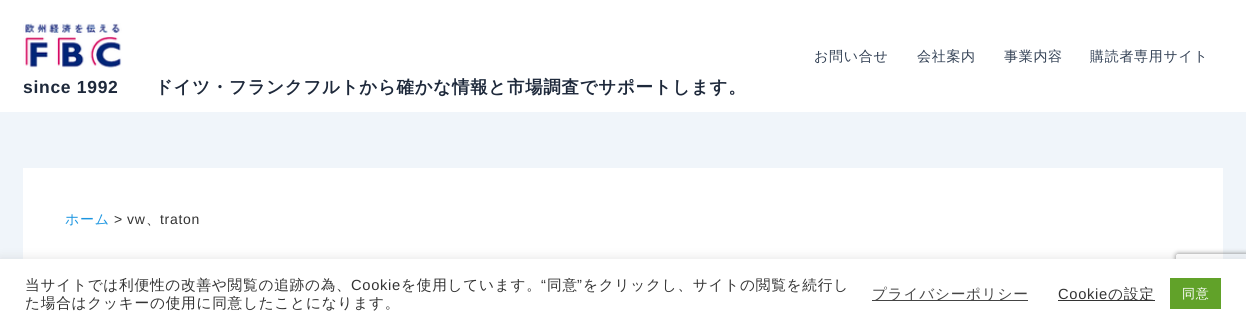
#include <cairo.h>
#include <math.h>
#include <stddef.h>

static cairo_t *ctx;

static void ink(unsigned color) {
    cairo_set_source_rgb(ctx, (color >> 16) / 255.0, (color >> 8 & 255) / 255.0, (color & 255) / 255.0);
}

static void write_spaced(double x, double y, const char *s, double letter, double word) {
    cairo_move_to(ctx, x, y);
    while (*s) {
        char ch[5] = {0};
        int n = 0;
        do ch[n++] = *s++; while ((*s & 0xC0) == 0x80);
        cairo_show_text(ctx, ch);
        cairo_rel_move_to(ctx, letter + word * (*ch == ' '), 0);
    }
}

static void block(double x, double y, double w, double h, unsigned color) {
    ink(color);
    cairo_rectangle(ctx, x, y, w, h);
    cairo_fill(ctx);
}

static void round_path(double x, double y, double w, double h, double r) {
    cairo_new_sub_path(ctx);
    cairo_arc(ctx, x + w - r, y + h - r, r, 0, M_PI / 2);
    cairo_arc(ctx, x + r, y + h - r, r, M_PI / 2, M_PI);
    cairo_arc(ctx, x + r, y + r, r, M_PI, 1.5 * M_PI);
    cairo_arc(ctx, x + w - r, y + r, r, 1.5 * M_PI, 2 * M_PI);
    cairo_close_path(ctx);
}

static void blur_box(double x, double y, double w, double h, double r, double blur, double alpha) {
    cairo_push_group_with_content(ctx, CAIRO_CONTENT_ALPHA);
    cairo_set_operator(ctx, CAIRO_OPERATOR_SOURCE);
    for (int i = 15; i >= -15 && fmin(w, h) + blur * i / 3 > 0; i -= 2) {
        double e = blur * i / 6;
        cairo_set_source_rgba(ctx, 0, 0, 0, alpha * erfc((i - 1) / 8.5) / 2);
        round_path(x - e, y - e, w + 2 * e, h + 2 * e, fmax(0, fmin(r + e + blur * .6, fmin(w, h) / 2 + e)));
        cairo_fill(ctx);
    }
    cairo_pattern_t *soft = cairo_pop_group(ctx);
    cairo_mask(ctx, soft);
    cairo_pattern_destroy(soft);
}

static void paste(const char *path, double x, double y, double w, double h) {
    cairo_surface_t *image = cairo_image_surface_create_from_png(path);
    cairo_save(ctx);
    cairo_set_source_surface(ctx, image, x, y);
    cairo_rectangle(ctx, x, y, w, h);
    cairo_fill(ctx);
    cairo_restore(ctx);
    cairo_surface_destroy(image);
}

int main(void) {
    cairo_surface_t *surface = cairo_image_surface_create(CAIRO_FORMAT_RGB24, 1246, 328);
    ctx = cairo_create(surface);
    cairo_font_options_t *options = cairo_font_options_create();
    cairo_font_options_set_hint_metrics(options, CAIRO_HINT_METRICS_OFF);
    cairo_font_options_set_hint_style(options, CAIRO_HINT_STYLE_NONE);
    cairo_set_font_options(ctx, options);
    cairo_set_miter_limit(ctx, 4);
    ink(0xf0f5fa);
    cairo_paint(ctx);
    block(0, 0, 1246, 112, 0xffffff);
    cairo_select_font_face(ctx, "WenQuanYi Zen Hei Medium", CAIRO_FONT_SLANT_NORMAL, CAIRO_FONT_WEIGHT_NORMAL);
    cairo_set_font_size(ctx, 14);
    ink(0x334155);
    write_spaced(814, 61, "お問い合せ", 0.7, 0);
    write_spaced(917, 61, "会社案内", 0.7, 0);
    write_spaced(1004, 61, "事業内容", 0.7, 0);
    write_spaced(1090, 61, "購読者専用サイト", 0.7, 0);
    paste("pic1.png", 23, 23, 99, 45);
    cairo_select_font_face(ctx, "Liberation Sans", CAIRO_FONT_SLANT_NORMAL, CAIRO_FONT_WEIGHT_BOLD);
    cairo_set_font_size(ctx, 17.5);
    ink(0x1e293b);
    write_spaced(23, 93, "since 1992", 0.7, 0);
    cairo_select_font_face(ctx, "WenQuanYi Zen Hei", CAIRO_FONT_SLANT_NORMAL, CAIRO_FONT_WEIGHT_BOLD);
    write_spaced(155, 93, "ドイツ・フランクフルトから確かな情報と市場調査でサポートします。", 0.7, 0);
    block(23, 168, 1200, 91, 0xffffff);
    cairo_select_font_face(ctx, "WenQuanYi Zen Hei Medium", CAIRO_FONT_SLANT_NORMAL, CAIRO_FONT_WEIGHT_NORMAL);
    cairo_set_font_size(ctx, 14);
    ink(0x1b95e0);
    write_spaced(65, 224, "ホーム", 0.7, 0);
    cairo_select_font_face(ctx, "Liberation Sans", CAIRO_FONT_SLANT_NORMAL, CAIRO_FONT_WEIGHT_NORMAL);
    ink(0x333333);
    write_spaced(114, 224, ">", 0.7, 0);
    write_spaced(127, 224, "vw", 0.7, 0);
    cairo_select_font_face(ctx, "WenQuanYi Zen Hei Medium", CAIRO_FONT_SLANT_NORMAL, CAIRO_FONT_WEIGHT_NORMAL);
    write_spaced(146, 224, "、", 0.7, 0);
    cairo_select_font_face(ctx, "Liberation Sans", CAIRO_FONT_SLANT_NORMAL, CAIRO_FONT_WEIGHT_NORMAL);
    write_spaced(160, 224, "traton", 0.7, 0);
    cairo_save(ctx);
    cairo_set_fill_rule(ctx, CAIRO_FILL_RULE_EVEN_ODD);
    cairo_new_path(ctx);
    cairo_move_to(ctx, 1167, 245);
    cairo_line_to(ctx, 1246, 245);
    cairo_line_to(ctx, 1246, 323);
    cairo_line_to(ctx, 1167, 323);
    cairo_close_path(ctx);
    cairo_move_to(ctx, 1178, 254);
    cairo_line_to(ctx, 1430, 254);
    cairo_curve_to(ctx, 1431, 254, 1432, 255, 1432, 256);
    cairo_line_to(ctx, 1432, 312);
    cairo_curve_to(ctx, 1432, 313, 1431, 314, 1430, 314);
    cairo_line_to(ctx, 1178, 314);
    cairo_curve_to(ctx, 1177, 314, 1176, 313, 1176, 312);
    cairo_line_to(ctx, 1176, 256);
    cairo_curve_to(ctx, 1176, 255, 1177, 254, 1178, 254);
    cairo_close_path(ctx);
    cairo_clip(ctx);
    ink(0x808080);
    blur_box(1176, 254, 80, 60, 2, 2.5, 1);
    cairo_restore(ctx);
    ink(0xacabab);
    blur_box(0, 258, 1246, 69, 0, 5, 0.3);
    block(0, 259, 1246, 69, 0xffffff);
    cairo_select_font_face(ctx, "WenQuanYi Zen Hei Medium", CAIRO_FONT_SLANT_NORMAL, CAIRO_FONT_WEIGHT_NORMAL);
    cairo_set_font_size(ctx, 14.7);
    ink(0x333333);
    write_spaced(25, 290, "当サイトでは利便性の改善や閲覧の追跡の為、", 0.7, 0);
    cairo_select_font_face(ctx, "Liberation Sans", CAIRO_FONT_SLANT_NORMAL, CAIRO_FONT_WEIGHT_NORMAL);
    write_spaced(351, 290, "Cookie", 0.7, 0);
    cairo_select_font_face(ctx, "WenQuanYi Zen Hei Medium", CAIRO_FONT_SLANT_NORMAL, CAIRO_FONT_WEIGHT_NORMAL);
    write_spaced(401, 290, "を使用しています。", 0.7, 0);
    cairo_select_font_face(ctx, "Liberation Sans", CAIRO_FONT_SLANT_NORMAL, CAIRO_FONT_WEIGHT_NORMAL);
    write_spaced(541, 290, "“", 0.7, 0);
    cairo_select_font_face(ctx, "WenQuanYi Zen Hei Medium", CAIRO_FONT_SLANT_NORMAL, CAIRO_FONT_WEIGHT_NORMAL);
    write_spaced(547, 290, "同意", 0.7, 0);
    cairo_select_font_face(ctx, "Liberation Sans", CAIRO_FONT_SLANT_NORMAL, CAIRO_FONT_WEIGHT_NORMAL);
    write_spaced(577, 290, "”", 0.7, 0);
    cairo_select_font_face(ctx, "WenQuanYi Zen Hei Medium", CAIRO_FONT_SLANT_NORMAL, CAIRO_FONT_WEIGHT_NORMAL);
    write_spaced(583, 290, "をクリックし、サイトの閲覧を続行し", 0.7, 0);
    write_spaced(25, 308, "た場合はクッキーの使用に同意したことになります。", 0.7, 0);
    block(872, 300, 156, 1, 0x444444);
    write_spaced(872, 299, "プライバシーポリシー", 0.7, 0);
    cairo_select_font_face(ctx, "Liberation Sans", CAIRO_FONT_SLANT_NORMAL, CAIRO_FONT_WEIGHT_NORMAL);
    ink(0x333333);
    write_spaced(1058, 299, "Cookie", 0.7, 0);
    block(1058, 300, 97, 1, 0x333333);
    cairo_select_font_face(ctx, "WenQuanYi Zen Hei Medium", CAIRO_FONT_SLANT_NORMAL, CAIRO_FONT_WEIGHT_NORMAL);
    write_spaced(1108, 299, "の設定", 0.7, 0);
    block(1170, 278, 51, 31, 0x61a229);
    cairo_set_font_size(ctx, 13);
    ink(0xffffff);
    write_spaced(1182, 298, "同意", 0.7, 0);
    cairo_surface_write_to_png(surface, "screenshot.png");
    cairo_font_options_destroy(options);
    cairo_destroy(ctx);
    cairo_surface_destroy(surface);
    return 0;
}
